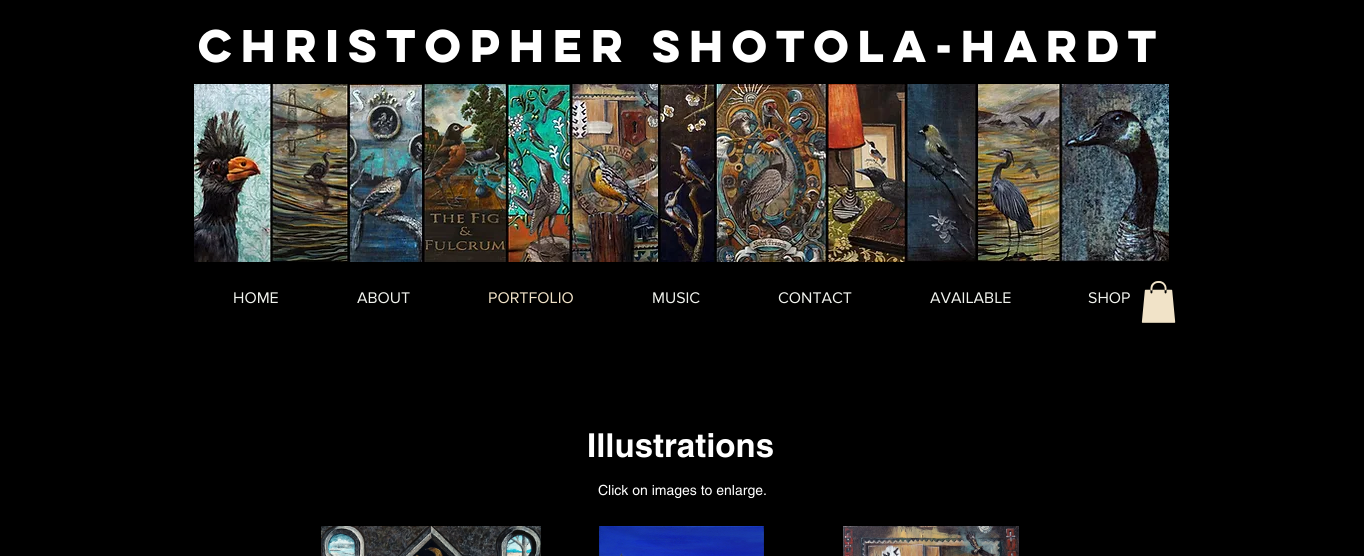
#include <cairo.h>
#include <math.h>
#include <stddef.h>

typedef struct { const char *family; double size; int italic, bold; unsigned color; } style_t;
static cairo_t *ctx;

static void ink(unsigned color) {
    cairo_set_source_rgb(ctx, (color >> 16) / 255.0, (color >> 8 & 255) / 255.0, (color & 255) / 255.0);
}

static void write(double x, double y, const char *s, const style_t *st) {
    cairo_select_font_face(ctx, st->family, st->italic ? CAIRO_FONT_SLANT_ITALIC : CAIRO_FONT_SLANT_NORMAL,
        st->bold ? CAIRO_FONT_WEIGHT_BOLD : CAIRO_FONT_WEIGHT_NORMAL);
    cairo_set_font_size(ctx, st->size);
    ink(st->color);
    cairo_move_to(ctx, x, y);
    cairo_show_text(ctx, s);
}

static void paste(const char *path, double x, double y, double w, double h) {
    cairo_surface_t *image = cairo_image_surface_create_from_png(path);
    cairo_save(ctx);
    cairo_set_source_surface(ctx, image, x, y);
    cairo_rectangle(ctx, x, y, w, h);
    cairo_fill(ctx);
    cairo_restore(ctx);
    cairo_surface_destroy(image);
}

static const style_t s1 = {"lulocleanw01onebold", 41, 0, 1, 0xffffff};
static const style_t s2 = {"lulocleanw01onebold", 40, 0, 1, 0xffffff};
static const style_t s3 = {"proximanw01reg", 16, 0, 0, 0xf1f3ee};
static const style_t s4 = {"proximanw01reg", 16, 0, 0, 0xf1e3c8};
static const style_t s5 = {"helvetica", 33, 0, 1, 0xffffff};
static const style_t s6 = {"helvetica", 14, 0, 0, 0xffffff};

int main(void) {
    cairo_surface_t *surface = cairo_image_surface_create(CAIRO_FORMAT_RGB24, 1364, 556);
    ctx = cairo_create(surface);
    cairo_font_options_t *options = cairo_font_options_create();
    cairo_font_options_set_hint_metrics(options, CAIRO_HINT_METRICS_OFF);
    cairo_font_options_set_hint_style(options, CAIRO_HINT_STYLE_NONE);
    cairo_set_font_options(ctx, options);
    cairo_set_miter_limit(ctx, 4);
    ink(0x000000);
    cairo_paint(ctx);
    write(198, 62, "Christopher", &s1);
    write(652, 62, "Shotola-Hardt", &s2);
    paste("pic1.png", 194, 84, 975, 178);
    write(233, 303, "HOME", &s3);
    write(357, 303, "ABOUT", &s3);
    write(488, 303, "PORTFOLIO", &s4);
    write(652, 303, "MUSIC", &s3);
    write(778, 303, "CONTACT", &s3);
    write(930, 303, "AVAILABLE", &s3);
    write(1088, 303, "SHOP", &s3);
    paste("pic2.png", 1141, 281, 35, 42);
    write(587, 457, "Illustrations", &s5);
    write(598, 495, "Click on images to enlarge.", &s6);
    paste("pic3.png", 321, 526, 220, 30);
    paste("pic4.png", 599, 526, 165, 30);
    paste("pic5.png", 843, 526, 176, 30);
    cairo_surface_write_to_png(surface, "screenshot.png");
    cairo_font_options_destroy(options);
    cairo_destroy(ctx);
    cairo_surface_destroy(surface);
    return 0;
}
